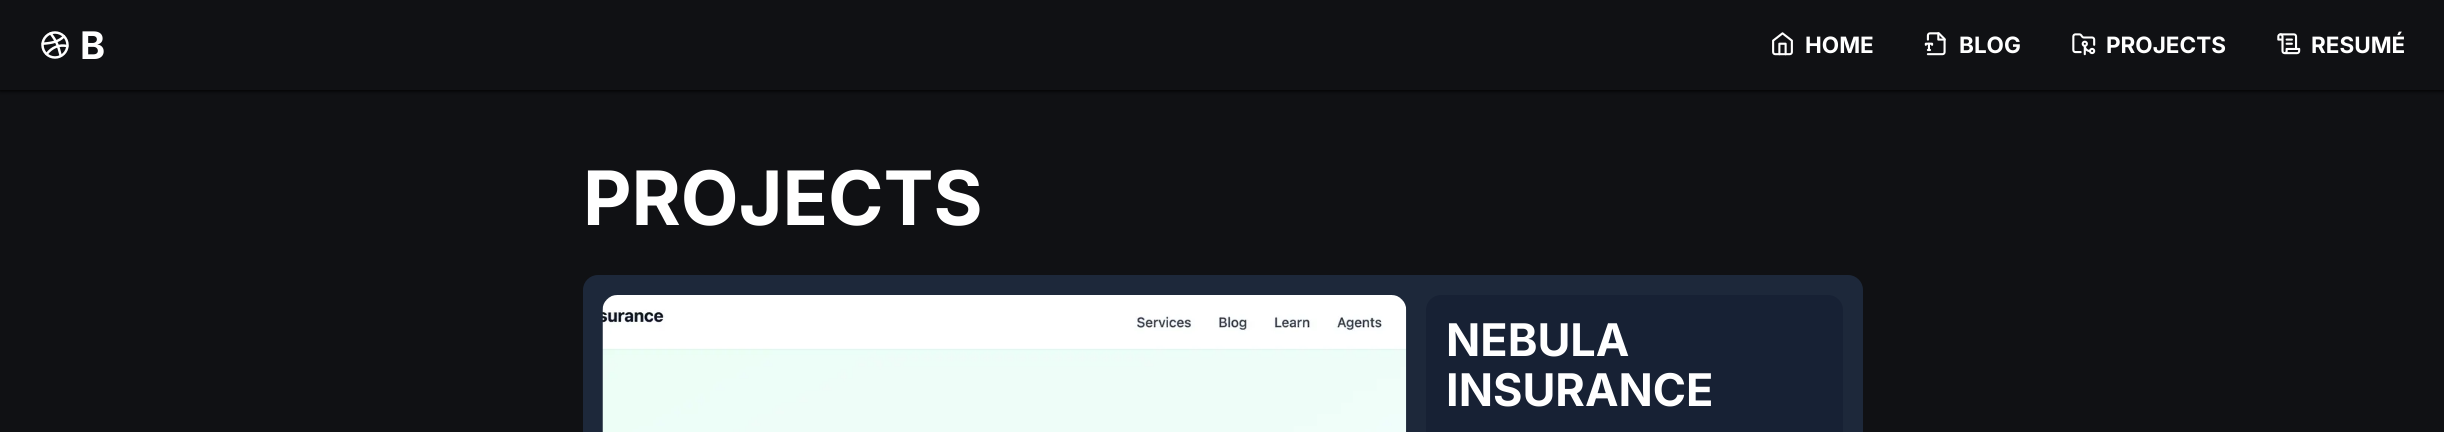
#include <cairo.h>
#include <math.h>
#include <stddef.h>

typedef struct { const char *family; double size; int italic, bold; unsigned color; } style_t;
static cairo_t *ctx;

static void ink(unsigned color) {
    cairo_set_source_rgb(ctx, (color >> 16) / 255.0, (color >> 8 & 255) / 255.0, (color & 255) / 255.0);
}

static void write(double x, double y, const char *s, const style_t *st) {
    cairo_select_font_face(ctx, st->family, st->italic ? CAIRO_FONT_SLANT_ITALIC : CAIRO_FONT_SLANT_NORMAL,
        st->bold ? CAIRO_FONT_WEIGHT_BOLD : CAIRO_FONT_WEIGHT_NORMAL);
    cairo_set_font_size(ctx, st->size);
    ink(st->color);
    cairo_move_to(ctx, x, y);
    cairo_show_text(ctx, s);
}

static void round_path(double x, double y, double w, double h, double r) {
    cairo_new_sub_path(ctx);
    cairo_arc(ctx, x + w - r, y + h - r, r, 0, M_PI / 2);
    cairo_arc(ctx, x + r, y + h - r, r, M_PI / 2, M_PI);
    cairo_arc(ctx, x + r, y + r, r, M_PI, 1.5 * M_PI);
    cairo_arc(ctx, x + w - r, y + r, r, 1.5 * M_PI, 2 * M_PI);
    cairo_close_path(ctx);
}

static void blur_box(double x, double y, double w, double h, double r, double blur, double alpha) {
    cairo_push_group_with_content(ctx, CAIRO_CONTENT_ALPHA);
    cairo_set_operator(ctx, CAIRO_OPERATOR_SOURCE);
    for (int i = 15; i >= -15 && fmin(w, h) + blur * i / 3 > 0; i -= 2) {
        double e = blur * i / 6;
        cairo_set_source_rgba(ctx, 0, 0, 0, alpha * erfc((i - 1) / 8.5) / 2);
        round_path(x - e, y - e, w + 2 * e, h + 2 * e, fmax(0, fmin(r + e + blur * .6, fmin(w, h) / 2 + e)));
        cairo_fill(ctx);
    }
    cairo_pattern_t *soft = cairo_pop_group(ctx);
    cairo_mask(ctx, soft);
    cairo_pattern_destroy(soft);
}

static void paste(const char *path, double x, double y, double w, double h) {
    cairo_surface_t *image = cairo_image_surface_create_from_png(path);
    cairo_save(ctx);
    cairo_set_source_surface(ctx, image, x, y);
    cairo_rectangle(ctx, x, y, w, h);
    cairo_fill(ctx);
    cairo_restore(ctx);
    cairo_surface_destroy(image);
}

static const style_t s1 = {"Inter", 38, 0, 1, 0xffffff};
static const style_t s2 = {"Inter", 22.5, 0, 1, 0xffffff};
static const style_t s3 = {"Inter", 75, 0, 1, 0xffffff};
static const style_t s4 = {"Inter", 45, 0, 1, 0xffffff};

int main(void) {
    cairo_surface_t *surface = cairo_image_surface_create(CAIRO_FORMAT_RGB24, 2444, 432);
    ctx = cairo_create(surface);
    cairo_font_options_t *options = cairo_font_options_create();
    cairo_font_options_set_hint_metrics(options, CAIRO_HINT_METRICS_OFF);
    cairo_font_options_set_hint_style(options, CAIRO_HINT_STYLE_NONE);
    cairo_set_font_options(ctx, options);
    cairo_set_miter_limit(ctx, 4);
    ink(0x101114);
    cairo_paint(ctx);
    cairo_save(ctx);
    cairo_rectangle(ctx, 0, 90, 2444, 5);
    cairo_clip(ctx);
    ink(0x000000);
    blur_box(0, 1, 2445, 90, 0, 2, 1);
    cairo_restore(ctx);
    paste("pic1.png", 41, 31, 28, 28);
    write(80, 59, "B", &s1);
    paste("pic2.png", 1772, 32, 21, 24);
    write(1805, 53, "HOME", &s2);
    paste("pic3.png", 1924, 32, 22, 24);
    write(1959, 53, "BLOG", &s2);
    paste("pic4.png", 2072, 33, 24, 23);
    write(2106, 53, "PROJECTS", &s2);
    paste("pic5.png", 2277, 33, 24, 22);
    write(2311, 53, "RESUMÉ", &s2);
    write(583, 225, "PROJECTS", &s3);
    ink(0x1d283a);
    round_path(583, 275, 1280, 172, 15);
    cairo_fill(ctx);
    paste("pic6.png", 602, 295, 805, 137);
    ink(0x172134);
    round_path(1426, 295, 417, 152, 15);
    cairo_fill(ctx);
    write(1446, 356, "NEBULA", &s4);
    write(1446, 406, "INSURANCE", &s4);
    cairo_surface_write_to_png(surface, "screenshot.png");
    cairo_font_options_destroy(options);
    cairo_destroy(ctx);
    cairo_surface_destroy(surface);
    return 0;
}
